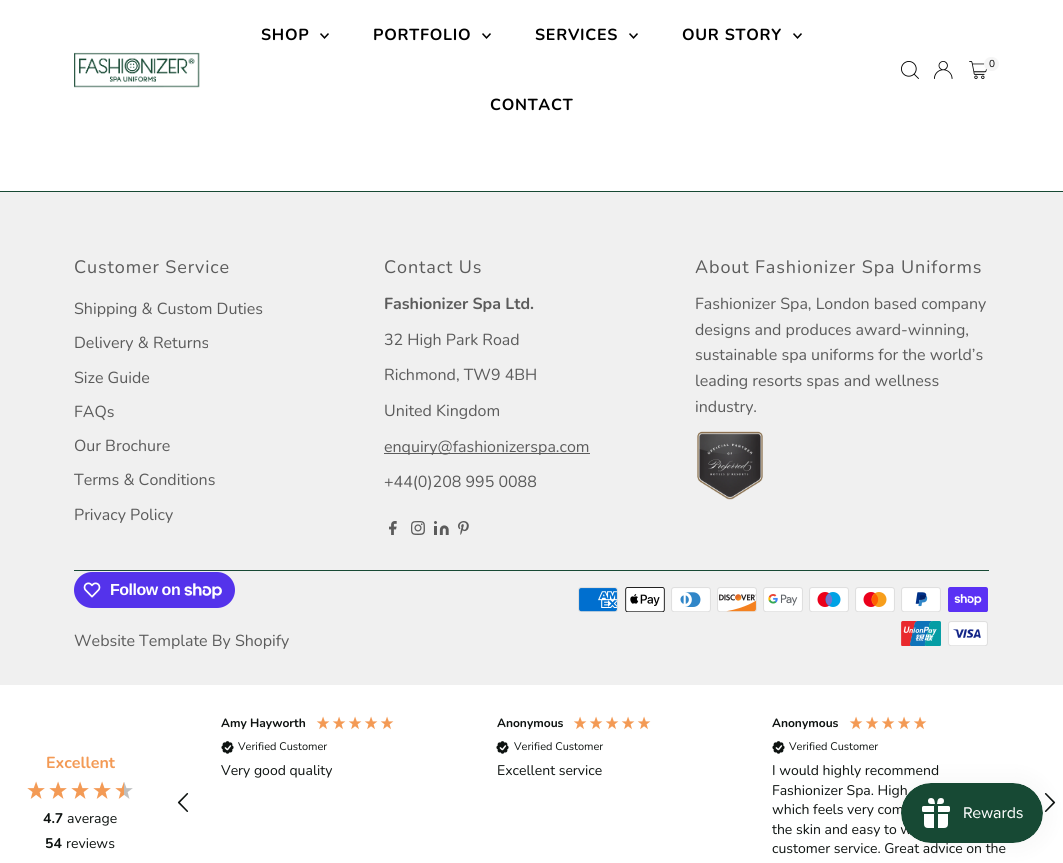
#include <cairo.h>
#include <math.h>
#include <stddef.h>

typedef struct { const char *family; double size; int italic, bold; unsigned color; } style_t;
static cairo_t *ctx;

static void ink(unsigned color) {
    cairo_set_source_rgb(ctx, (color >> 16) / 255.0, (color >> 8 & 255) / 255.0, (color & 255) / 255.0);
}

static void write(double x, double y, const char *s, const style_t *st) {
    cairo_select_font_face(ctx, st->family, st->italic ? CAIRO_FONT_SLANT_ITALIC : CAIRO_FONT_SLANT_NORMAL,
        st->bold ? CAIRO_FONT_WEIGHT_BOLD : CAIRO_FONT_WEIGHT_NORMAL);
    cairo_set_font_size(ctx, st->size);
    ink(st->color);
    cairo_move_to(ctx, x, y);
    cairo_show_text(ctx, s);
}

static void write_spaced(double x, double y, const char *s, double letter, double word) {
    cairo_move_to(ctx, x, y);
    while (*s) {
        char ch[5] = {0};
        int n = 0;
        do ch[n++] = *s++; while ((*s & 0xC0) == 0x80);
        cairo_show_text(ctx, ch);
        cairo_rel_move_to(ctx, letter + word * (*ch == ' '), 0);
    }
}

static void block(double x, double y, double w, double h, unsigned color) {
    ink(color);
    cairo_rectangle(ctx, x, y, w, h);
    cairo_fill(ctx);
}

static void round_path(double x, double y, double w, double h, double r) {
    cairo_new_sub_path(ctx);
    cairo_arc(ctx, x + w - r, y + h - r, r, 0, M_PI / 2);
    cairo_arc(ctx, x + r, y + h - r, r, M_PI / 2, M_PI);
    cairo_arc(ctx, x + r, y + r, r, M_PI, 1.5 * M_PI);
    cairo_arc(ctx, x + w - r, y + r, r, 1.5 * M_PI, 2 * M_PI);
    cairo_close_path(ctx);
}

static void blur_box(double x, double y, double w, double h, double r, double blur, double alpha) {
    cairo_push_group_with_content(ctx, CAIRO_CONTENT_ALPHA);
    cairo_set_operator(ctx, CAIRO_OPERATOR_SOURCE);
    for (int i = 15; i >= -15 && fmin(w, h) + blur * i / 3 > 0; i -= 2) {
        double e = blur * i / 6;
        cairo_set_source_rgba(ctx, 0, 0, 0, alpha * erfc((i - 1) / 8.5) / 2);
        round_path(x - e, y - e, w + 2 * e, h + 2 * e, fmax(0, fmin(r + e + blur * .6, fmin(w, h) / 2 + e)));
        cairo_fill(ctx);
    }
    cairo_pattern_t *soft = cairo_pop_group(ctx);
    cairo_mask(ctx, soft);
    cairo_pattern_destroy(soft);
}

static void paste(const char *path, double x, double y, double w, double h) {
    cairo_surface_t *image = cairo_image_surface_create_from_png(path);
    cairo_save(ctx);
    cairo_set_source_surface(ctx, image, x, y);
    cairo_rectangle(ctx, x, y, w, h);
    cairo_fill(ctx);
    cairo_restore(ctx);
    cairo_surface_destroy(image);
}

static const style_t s1 = {"Nunito", 10, 0, 0, 0x000000};
static const style_t s2 = {"Nunito", 16, 0, 0, 0x5b5b5b};
static const style_t s3 = {"Nunito", 16, 0, 1, 0x5b5b5b};
static const style_t s4 = {"Nunito", 16, 0, 1, 0xf39a55};
static const style_t s5 = {"Nunito", 14, 0, 1, 0x0e1311};
static const style_t s6 = {"Nunito", 14, 0, 0, 0x0e1311};
static const style_t s7 = {"Nunito", 12, 0, 1, 0x0e1311};
static const style_t s8 = {"Nunito", 11, 0, 0, 0x0e1311};

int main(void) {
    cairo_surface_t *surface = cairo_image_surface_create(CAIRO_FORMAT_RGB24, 1063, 863);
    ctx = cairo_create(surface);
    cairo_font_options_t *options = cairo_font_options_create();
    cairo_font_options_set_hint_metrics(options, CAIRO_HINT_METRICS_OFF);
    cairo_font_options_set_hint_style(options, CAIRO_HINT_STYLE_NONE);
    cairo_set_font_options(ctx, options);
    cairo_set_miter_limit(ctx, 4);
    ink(0xffffff);
    cairo_paint(ctx);
    paste("pic1.png", 74, 52, 126, 36);
    cairo_select_font_face(ctx, "Nunito", CAIRO_FONT_SLANT_NORMAL, CAIRO_FONT_WEIGHT_BOLD);
    cairo_set_font_size(ctx, 16);
    ink(0x000000);
    write_spaced(261, 40, "SHOP", 0.75, 0);
    paste("pic2.png", 320, 33, 9, 6);
    write_spaced(373, 40, "PORTFOLIO", 0.75, 0);
    paste("pic2.png", 482, 33, 9, 6);
    write_spaced(535, 40, "SERVICES", 0.75, 0);
    paste("pic2.png", 629, 33, 9, 6);
    write_spaced(682, 40, "OUR STORY", 0.75, 0);
    paste("pic2.png", 793, 33, 9, 6);
    write_spaced(490, 110, "CONTACT", 0.75, 0);
    paste("pic3.png", 901, 61, 18, 18);
    paste("pic4.png", 934, 61, 19, 18);
    paste("pic5.png", 969, 61, 18, 18);
    ink(0xf5f5f5);
    round_path(984, 57, 15, 14, 7);
    cairo_fill(ctx);
    write(989, 67, "0", &s1);
    block(0, 192, 1063, 493, 0xf0f0f0);
    block(0, 191, 1063, 1, 0x174934);
    cairo_set_font_size(ctx, 18);
    ink(0x5b5b5b);
    write_spaced(74, 273, "Customer Service", 0.9, 0);
    write(74, 314, "Shipping & Custom Duties", &s2);
    write(74, 348, "Delivery & Returns", &s2);
    write(74, 383, "Size Guide", &s2);
    write(74, 417, "FAQs", &s2);
    write(74, 451, "Our Brochure", &s2);
    write(74, 485, "Terms & Conditions", &s2);
    write(74, 520, "Privacy Policy", &s2);
    cairo_set_font_size(ctx, 18);
    write_spaced(384, 273, "Contact Us", 0.9, 0);
    write(384, 309, "Fashionizer Spa Ltd.", &s3);
    write(384, 345, "32 High Park Road", &s2);
    write(384, 380, "Richmond, TW9 4BH", &s2);
    write(384, 416, "United Kingdom", &s2);
    block(384, 453, 206, 1, 0x5b5b5b);
    write(384, 452, "enquiry@fashionizerspa.com", &s2);
    write(384, 487, "+44(0)208 995 0088", &s2);
    paste("pic6.png", 389, 521, 8, 14);
    paste("pic7.png", 411, 521, 14, 14);
    paste("pic8.png", 434, 521, 15, 14);
    paste("pic9.png", 458, 521, 11, 14);
    cairo_set_font_size(ctx, 18);
    write_spaced(695, 273, "About Fashionizer Spa Uniforms", 0.9, 0);
    write(695, 309, "Fashionizer Spa, London based company", &s2);
    write(695, 335, "designs and produces award-winning,", &s2);
    write(695, 360, "sustainable spa uniforms for the world’s", &s2);
    write(695, 386, "leading resorts spas and wellness", &s2);
    write(695, 412, "industry.", &s2);
    paste("pic10.png", 697, 431, 66, 69);
    block(74, 570, 915, 1, 0x174934);
    ink(0x5433eb);
    round_path(74, 572, 161, 36, 18);
    cairo_fill(ctx);
    paste("pic11.png", 83, 582, 18, 16);
    cairo_select_font_face(ctx, "Liberation Sans", CAIRO_FONT_SLANT_NORMAL, CAIRO_FONT_WEIGHT_BOLD);
    ink(0xffffff);
    write_spaced(110, 595, "Follow on", -0.5, 0);
    paste("pic12.png", 184, 583, 38, 16);
    write(74, 646, "Website Template By Shopify", &s2);
    paste("pic13.png", 578, 587, 40, 25);
    paste("pic14.png", 625, 587, 40, 25);
    paste("pic15.png", 671, 587, 40, 25);
    paste("pic16.png", 717, 587, 40, 25);
    paste("pic17.png", 763, 587, 40, 25);
    paste("pic18.png", 809, 587, 40, 25);
    paste("pic19.png", 855, 587, 40, 25);
    paste("pic20.png", 901, 587, 40, 25);
    paste("pic21.png", 948, 587, 40, 25);
    paste("pic22.png", 901, 621, 40, 25);
    paste("pic23.png", 948, 621, 40, 25);
    write(46, 768, "Excellent", &s4);
    paste("pic24.png", 27, 781, 18, 18);
    paste("pic24.png", 49, 781, 18, 18);
    paste("pic24.png", 71, 781, 18, 18);
    paste("pic24.png", 93, 781, 18, 18);
    paste("pic25.png", 115, 782, 18, 17);
    write(43, 823, "4.7", &s5);
    write(67, 823, "average", &s6);
    write(45, 848, "54", &s5);
    write(66, 848, "reviews", &s6);
    paste("pic26.png", 177, 793, 12, 19);
    write(221, 727, "Amy Hayworth", &s7);
    paste("pic27.png", 316, 716, 14, 14);
    paste("pic27.png", 332, 716, 14, 14);
    paste("pic27.png", 348, 716, 14, 14);
    paste("pic27.png", 364, 716, 14, 14);
    paste("pic27.png", 380, 716, 14, 14);
    paste("pic28.png", 221, 741, 13, 13);
    write(238, 750, "Verified Customer", &s8);
    write(221, 775, "Very good quality", &s6);
    write(497, 727, "Anonymous", &s7);
    paste("pic27.png", 573, 716, 14, 14);
    paste("pic27.png", 589, 716, 14, 14);
    paste("pic27.png", 605, 716, 14, 14);
    paste("pic27.png", 621, 716, 14, 14);
    paste("pic27.png", 637, 716, 14, 14);
    paste("pic28.png", 496, 741, 13, 13);
    write(514, 750, "Verified Customer", &s8);
    write(497, 775, "Excellent service", &s6);
    write(772, 727, "Anonymous", &s7);
    paste("pic27.png", 849, 716, 14, 14);
    paste("pic27.png", 865, 716, 14, 14);
    paste("pic27.png", 881, 716, 14, 14);
    paste("pic27.png", 897, 716, 14, 14);
    paste("pic27.png", 913, 716, 14, 14);
    paste("pic28.png", 772, 741, 13, 13);
    write(789, 750, "Verified Customer", &s8);
    write(772, 775, "I would highly recommend", &s6);
    write(772, 795, "Fashionizer Spa. High", &s6);
    write(772, 814, "which feels very com", &s6);
    write(772, 834, "the skin and easy to w", &s6);
    write(772, 853, "customer service. Great advice on the", &s6);
    paste("pic29.png", 1044, 793, 12, 19);
    ink(0x000000);
    blur_box(901, 783, 142, 60, 30, 12.5, 0.05);
    paste("pic30.png", 901, 783, 142, 60);
    cairo_surface_write_to_png(surface, "screenshot.png");
    cairo_font_options_destroy(options);
    cairo_destroy(ctx);
    cairo_surface_destroy(surface);
    return 0;
}
